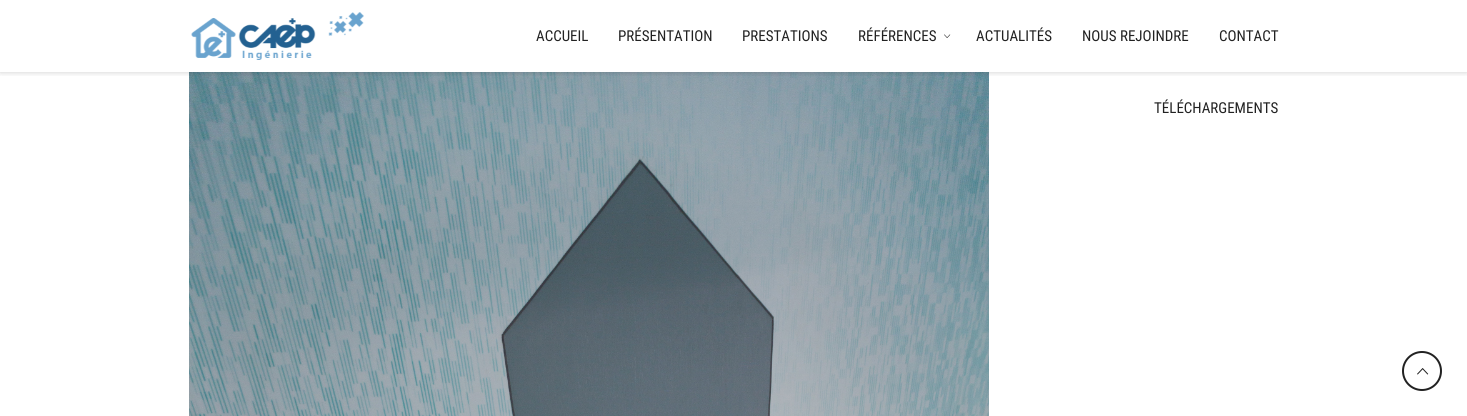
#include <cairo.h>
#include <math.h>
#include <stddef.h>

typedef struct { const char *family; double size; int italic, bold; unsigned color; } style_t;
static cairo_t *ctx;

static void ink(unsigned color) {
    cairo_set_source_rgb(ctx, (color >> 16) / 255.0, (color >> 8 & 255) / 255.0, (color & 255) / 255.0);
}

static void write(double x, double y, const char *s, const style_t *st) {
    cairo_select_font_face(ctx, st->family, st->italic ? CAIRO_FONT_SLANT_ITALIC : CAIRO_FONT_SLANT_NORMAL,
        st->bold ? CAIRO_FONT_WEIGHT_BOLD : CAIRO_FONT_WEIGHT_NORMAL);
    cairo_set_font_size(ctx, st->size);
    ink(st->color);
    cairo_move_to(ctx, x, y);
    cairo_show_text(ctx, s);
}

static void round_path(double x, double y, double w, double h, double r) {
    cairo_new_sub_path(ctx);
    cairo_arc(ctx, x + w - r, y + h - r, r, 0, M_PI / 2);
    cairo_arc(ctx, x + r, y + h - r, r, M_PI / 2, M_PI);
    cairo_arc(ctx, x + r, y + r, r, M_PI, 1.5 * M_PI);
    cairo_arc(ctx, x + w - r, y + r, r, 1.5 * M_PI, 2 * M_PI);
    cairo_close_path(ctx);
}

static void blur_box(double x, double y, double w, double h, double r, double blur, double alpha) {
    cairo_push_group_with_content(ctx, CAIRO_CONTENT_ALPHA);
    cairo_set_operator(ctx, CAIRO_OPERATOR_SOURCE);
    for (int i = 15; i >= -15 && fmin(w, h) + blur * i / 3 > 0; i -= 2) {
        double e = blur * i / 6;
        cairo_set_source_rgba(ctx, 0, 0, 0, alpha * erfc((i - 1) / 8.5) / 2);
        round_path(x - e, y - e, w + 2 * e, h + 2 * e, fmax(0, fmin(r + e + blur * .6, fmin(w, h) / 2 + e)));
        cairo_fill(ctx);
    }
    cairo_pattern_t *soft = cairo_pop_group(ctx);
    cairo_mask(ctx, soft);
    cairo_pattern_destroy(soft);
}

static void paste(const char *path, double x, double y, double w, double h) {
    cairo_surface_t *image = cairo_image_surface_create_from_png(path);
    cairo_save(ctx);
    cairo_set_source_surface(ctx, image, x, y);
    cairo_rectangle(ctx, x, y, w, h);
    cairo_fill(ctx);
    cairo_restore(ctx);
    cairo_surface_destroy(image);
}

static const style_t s1 = {"Roboto Condensed", 15, 0, 0, 0x222222};

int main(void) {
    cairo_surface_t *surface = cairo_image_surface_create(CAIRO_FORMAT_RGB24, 1467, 416);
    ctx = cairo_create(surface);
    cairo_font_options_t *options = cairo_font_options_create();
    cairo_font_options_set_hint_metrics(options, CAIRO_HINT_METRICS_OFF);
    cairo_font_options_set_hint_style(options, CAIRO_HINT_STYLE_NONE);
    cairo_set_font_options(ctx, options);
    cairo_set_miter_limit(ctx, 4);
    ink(0xffffff);
    cairo_paint(ctx);
    paste("pic3.png", 189, 72, 800, 344);
    cairo_save(ctx);
    cairo_rectangle(ctx, 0, 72, 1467, 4);
    cairo_clip(ctx);
    ink(0x000000);
    blur_box(0, 1, 1467, 72, 0, 2.5, 0.15);
    cairo_restore(ctx);
    paste("pic1.png", 191, 12, 173, 48);
    write(536, 41, "ACCUEIL", &s1);
    write(618, 41, "PRÉSENTATION", &s1);
    write(742, 41, "PRESTATIONS", &s1);
    write(858, 41, "RÉFÉRENCES", &s1);
    paste("pic2.png", 944, 34, 7, 4);
    write(976, 41, "ACTUALITÉS", &s1);
    write(1082, 41, "NOUS REJOINDRE", &s1);
    write(1219, 41, "CONTACT", &s1);
    write(1154, 113, "TÉLÉCHARGEMENTS", &s1);
    cairo_new_path(ctx);
    cairo_arc(ctx, 1422, 371, 19, 0, 2 * M_PI);
    cairo_stroke(ctx);
    paste("pic4.png", 1417, 368, 12, 7);
    cairo_surface_write_to_png(surface, "screenshot.png");
    cairo_font_options_destroy(options);
    cairo_destroy(ctx);
    cairo_surface_destroy(surface);
    return 0;
}
